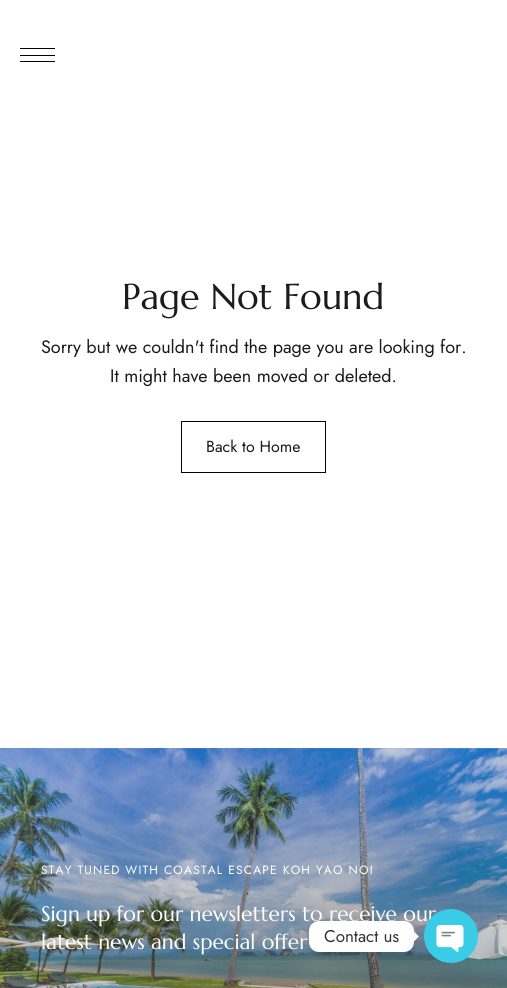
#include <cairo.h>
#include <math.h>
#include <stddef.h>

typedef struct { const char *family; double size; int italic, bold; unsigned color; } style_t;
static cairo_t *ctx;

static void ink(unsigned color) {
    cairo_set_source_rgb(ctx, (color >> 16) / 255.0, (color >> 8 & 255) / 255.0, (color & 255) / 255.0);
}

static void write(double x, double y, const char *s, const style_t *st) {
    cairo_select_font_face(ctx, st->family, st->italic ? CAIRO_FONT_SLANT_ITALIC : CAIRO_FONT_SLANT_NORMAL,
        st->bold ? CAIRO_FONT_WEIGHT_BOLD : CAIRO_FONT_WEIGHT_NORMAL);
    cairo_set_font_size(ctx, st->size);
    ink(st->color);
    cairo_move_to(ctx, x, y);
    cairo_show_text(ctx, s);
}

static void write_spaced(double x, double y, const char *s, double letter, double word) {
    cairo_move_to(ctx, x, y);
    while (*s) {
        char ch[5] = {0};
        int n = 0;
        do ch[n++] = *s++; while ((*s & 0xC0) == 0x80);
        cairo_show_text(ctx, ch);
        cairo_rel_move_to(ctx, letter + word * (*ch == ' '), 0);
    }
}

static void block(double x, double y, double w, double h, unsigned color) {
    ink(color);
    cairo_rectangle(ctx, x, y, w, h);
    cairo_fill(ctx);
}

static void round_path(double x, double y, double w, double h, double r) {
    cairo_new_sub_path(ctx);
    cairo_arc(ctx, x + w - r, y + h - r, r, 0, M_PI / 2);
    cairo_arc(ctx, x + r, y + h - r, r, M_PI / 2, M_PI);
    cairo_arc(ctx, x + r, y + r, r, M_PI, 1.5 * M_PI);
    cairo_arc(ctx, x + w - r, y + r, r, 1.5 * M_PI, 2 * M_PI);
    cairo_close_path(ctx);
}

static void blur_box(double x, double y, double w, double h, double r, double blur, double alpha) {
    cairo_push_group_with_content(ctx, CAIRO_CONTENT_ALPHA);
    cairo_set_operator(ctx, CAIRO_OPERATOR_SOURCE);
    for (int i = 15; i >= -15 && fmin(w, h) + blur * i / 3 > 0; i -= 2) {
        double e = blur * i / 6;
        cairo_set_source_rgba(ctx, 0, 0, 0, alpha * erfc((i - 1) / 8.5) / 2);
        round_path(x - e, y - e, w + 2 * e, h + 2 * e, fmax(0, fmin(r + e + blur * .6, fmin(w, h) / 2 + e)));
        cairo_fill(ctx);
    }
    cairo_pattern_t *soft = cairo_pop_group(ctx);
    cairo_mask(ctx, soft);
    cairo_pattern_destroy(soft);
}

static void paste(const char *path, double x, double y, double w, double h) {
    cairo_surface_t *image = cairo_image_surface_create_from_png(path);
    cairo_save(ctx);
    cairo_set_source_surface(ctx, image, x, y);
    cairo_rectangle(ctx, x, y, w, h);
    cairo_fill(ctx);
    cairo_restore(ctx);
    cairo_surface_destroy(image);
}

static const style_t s1 = {"Marcellus", 36, 0, 0, 0x1a1b1a};
static const style_t s2 = {"Jost", 18, 0, 0, 0x1a1b1a};
static const style_t s3 = {"Jost", 16, 0, 0, 0x1a1b1a};
static const style_t s4 = {"Marcellus", 21, 0, 0, 0xffffff};
static const style_t s5 = {"Jost", 17, 0, 0, 0x333333};

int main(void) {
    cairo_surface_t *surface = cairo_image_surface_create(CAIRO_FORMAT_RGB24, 507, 988);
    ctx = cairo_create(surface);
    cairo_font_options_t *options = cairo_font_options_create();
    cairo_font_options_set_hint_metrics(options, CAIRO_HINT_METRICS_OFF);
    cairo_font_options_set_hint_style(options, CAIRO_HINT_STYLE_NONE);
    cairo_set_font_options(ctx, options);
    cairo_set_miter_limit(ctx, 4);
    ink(0xffffff);
    cairo_paint(ctx);
    block(20, 48, 35, 1, 0x000000);
    block(20, 61, 35, 1, 0x000000);
    block(20, 55, 35, 1, 0x000000);
    write(122, 309, "Page Not Found", &s1);
    write(41, 353, "Sorry but we couldn't find the page you are looking for.", &s2);
    write(110, 382, "It might have been moved or deleted.", &s2);
    cairo_rectangle(ctx, 181.5, 421.5, 144, 51);
    ink(0x000000);
    cairo_set_line_width(ctx, 1);
    cairo_stroke(ctx);
    write(206, 452, "Back to Home", &s3);
    paste("pic1.png", 0, 748, 507, 240);
    cairo_set_font_size(ctx, 12);
    ink(0xffffff);
    write_spaced(41, 874, "STAY TUNED WITH COASTAL ESCAPE KOH YAO NOI", 1.2, 0);
    write(41, 921, "Sign up for our newsletters to receive our", &s4);
    write(41, 949, "latest news and special offer", &s4);
    ink(0x000000);
    blur_box(309, 922, 105, 31, 10, 4, 0.15);
    ink(0xffffff);
    round_path(309, 921, 105, 31, 10);
    cairo_fill(ctx);
    write(324, 942, "Contact us", &s5);
    ink(0xffffff);
    cairo_new_path(ctx);
    cairo_move_to(ctx, 414, 941.5);
    cairo_line_to(ctx, 414, 931.5);
    cairo_line_to(ctx, 419, 936.5);
    cairo_close_path(ctx);
    cairo_fill(ctx);
    ink(0x49687e);
    blur_box(424, 925, 54, 54, 27, 12, 0.16);
    paste("pic2.png", 424, 909, 54, 54);
    cairo_surface_write_to_png(surface, "screenshot.png");
    cairo_font_options_destroy(options);
    cairo_destroy(ctx);
    cairo_surface_destroy(surface);
    return 0;
}
